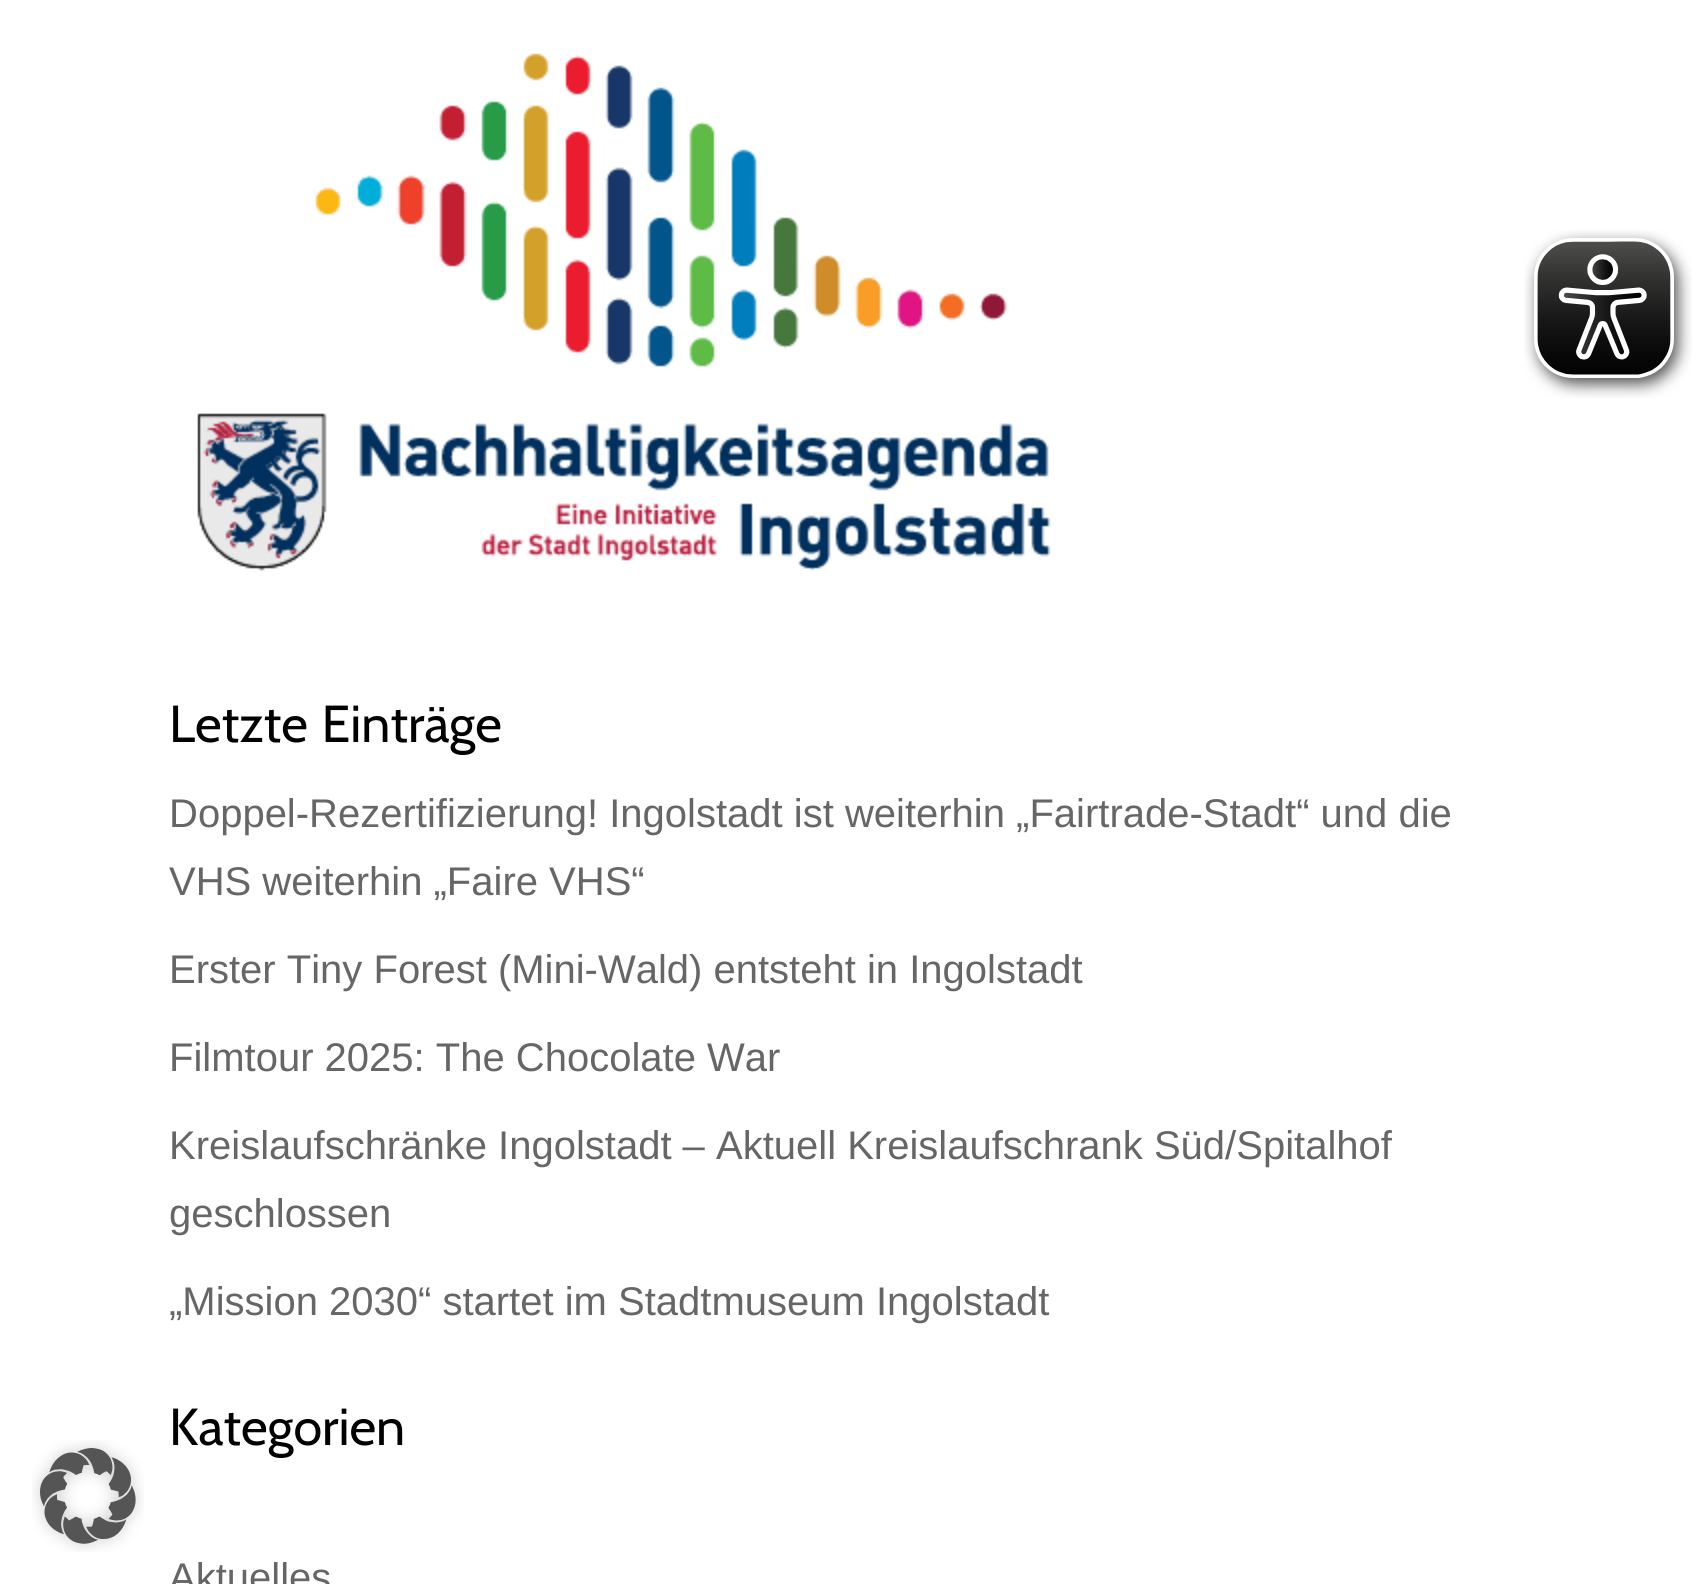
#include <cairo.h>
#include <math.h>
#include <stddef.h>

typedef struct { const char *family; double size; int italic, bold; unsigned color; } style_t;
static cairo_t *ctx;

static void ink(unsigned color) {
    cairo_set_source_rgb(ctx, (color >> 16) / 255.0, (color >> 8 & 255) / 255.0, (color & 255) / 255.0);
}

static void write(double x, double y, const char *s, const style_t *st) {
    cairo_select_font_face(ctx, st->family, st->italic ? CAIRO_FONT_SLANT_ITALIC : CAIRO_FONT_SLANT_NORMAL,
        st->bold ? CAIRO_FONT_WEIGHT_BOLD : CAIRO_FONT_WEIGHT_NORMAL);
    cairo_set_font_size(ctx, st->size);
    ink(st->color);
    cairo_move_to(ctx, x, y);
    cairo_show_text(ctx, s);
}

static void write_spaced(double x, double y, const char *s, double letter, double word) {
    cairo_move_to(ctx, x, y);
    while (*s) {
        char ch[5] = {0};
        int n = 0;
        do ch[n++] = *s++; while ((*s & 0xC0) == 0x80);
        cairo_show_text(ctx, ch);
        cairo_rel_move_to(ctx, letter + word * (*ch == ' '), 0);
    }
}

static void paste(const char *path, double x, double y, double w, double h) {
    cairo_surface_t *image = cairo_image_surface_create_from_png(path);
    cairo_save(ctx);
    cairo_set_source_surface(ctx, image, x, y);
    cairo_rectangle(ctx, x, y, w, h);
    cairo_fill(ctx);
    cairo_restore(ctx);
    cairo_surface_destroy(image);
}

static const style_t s1 = {"Liberation Sans", 40, 0, 0, 0x666666};
static const style_t s2 = {"Cabin", 52, 0, 0, 0x000000};

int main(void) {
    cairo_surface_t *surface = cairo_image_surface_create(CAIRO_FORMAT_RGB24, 1693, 1584);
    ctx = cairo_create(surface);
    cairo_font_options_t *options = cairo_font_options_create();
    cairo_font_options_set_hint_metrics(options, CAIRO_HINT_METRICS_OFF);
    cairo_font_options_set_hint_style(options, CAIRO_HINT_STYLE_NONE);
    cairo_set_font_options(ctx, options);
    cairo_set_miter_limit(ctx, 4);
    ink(0xffffff);
    cairo_paint(ctx);
    paste("pic1.png", 1524, 230, 168, 168);
    paste("pic2.png", 32, 1440, 112, 112);
    paste("pic3.png", 197, 53, 854, 518);
    cairo_select_font_face(ctx, "Cabin", CAIRO_FONT_SLANT_NORMAL, CAIRO_FONT_WEIGHT_NORMAL);
    cairo_set_font_size(ctx, 52);
    ink(0x000000);
    write_spaced(169, 742, "Letzte Einträge", 0, 2);
    write(169, 827, "Doppel-Rezertifizierung! Ingolstadt ist weiterhin „Fairtrade-Stadt“ und die", &s1);
    write(169, 895, "VHS weiterhin „Faire VHS“", &s1);
    write(169, 983, "Erster Tiny Forest (Mini-Wald) entsteht in Ingolstadt", &s1);
    write(169, 1071, "Filmtour 2025: The Chocolate War", &s1);
    write(169, 1159, "Kreislaufschränke Ingolstadt – Aktuell Kreislaufschrank Süd/Spitalhof", &s1);
    write(169, 1227, "geschlossen", &s1);
    write(169, 1315, "„Mission 2030“ startet im Stadtmuseum Ingolstadt", &s1);
    write(169, 1445, "Kategorien", &s2);
    write(169, 1591, "Aktuelles", &s1);
    cairo_surface_write_to_png(surface, "screenshot.png");
    cairo_font_options_destroy(options);
    cairo_destroy(ctx);
    cairo_surface_destroy(surface);
    return 0;
}
